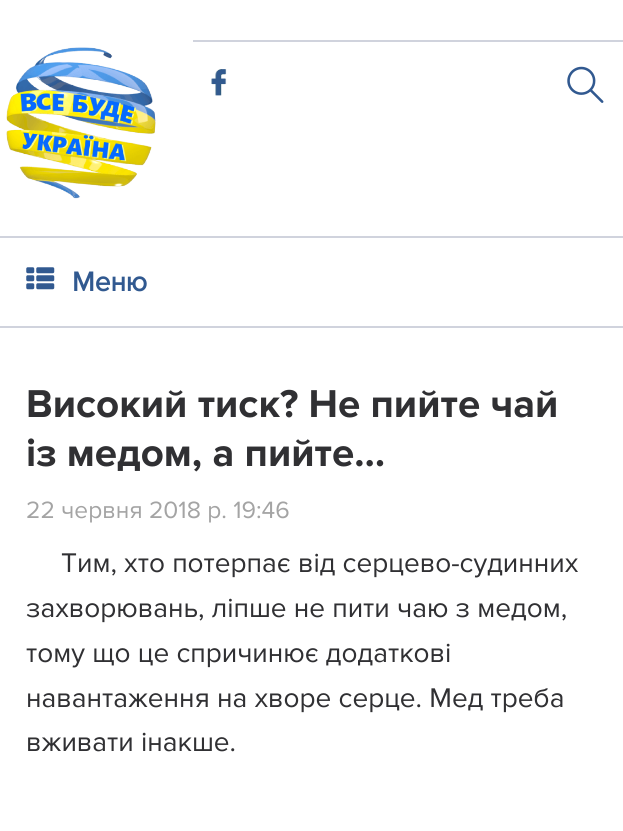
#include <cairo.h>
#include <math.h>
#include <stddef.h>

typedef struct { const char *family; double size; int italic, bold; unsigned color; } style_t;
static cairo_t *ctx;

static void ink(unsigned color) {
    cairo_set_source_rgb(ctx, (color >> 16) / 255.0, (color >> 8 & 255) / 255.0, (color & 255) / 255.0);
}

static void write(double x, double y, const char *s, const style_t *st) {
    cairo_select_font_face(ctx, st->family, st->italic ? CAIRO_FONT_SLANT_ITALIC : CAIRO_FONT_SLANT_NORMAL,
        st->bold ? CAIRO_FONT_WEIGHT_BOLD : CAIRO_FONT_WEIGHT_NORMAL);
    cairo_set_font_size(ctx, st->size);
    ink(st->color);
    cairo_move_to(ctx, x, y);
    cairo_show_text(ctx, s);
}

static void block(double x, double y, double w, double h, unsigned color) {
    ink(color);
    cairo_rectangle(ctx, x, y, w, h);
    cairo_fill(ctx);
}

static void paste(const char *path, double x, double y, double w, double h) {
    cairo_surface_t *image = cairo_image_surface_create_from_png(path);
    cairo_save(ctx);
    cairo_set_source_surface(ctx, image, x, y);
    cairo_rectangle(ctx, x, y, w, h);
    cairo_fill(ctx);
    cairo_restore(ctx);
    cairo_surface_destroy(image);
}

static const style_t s1 = {"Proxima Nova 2", 28, 0, 1, 0x315990};
static const style_t s2 = {"Proxima Nova", 40.25, 0, 1, 0x303033};
static const style_t s3 = {"Proxima Nova", 24.5, 0, 0, 0xa4a4a4};
static const style_t s4 = {"Proxima Nova", 28, 0, 0, 0x303033};

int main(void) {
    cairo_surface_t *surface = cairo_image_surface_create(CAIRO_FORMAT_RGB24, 623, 831);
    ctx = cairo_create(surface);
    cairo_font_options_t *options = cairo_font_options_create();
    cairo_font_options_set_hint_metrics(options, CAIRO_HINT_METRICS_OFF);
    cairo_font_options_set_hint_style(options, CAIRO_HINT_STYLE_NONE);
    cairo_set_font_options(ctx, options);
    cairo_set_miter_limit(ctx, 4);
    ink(0xffffff);
    cairo_paint(ctx);
    block(0, 326, 623, 2, 0xd0d3dd);
    paste("pic1.png", 6, 47, 150, 152);
    block(193, 40, 430, 2, 0xd0d3dd);
    paste("pic2.png", 211, 69, 16, 27);
    paste("pic3.png", 567, 66, 37, 37);
    block(0, 236, 623, 2, 0xd0d3dd);
    paste("pic4.png", 26, 267, 29, 23);
    write(72, 291, "Меню", &s1);
    write(26, 417, "Високий тиск? Не пийте чай", &s2);
    write(26, 466, "із медом, а пийте…", &s2);
    write(26, 518, "22 червня 2018 р. 19:46", &s3);
    write(61, 572, "Тим, хто потерпає від серцево-судинних", &s4);
    write(26, 617, "захворювань, ліпше не пити чаю з медом,", &s4);
    write(26, 662, "тому що це спричинює додаткові", &s4);
    write(26, 707, "навантаження на хворе серце. Мед треба", &s4);
    write(26, 751, "вживати інакше.", &s4);
    cairo_surface_write_to_png(surface, "screenshot.png");
    cairo_font_options_destroy(options);
    cairo_destroy(ctx);
    cairo_surface_destroy(surface);
    return 0;
}
